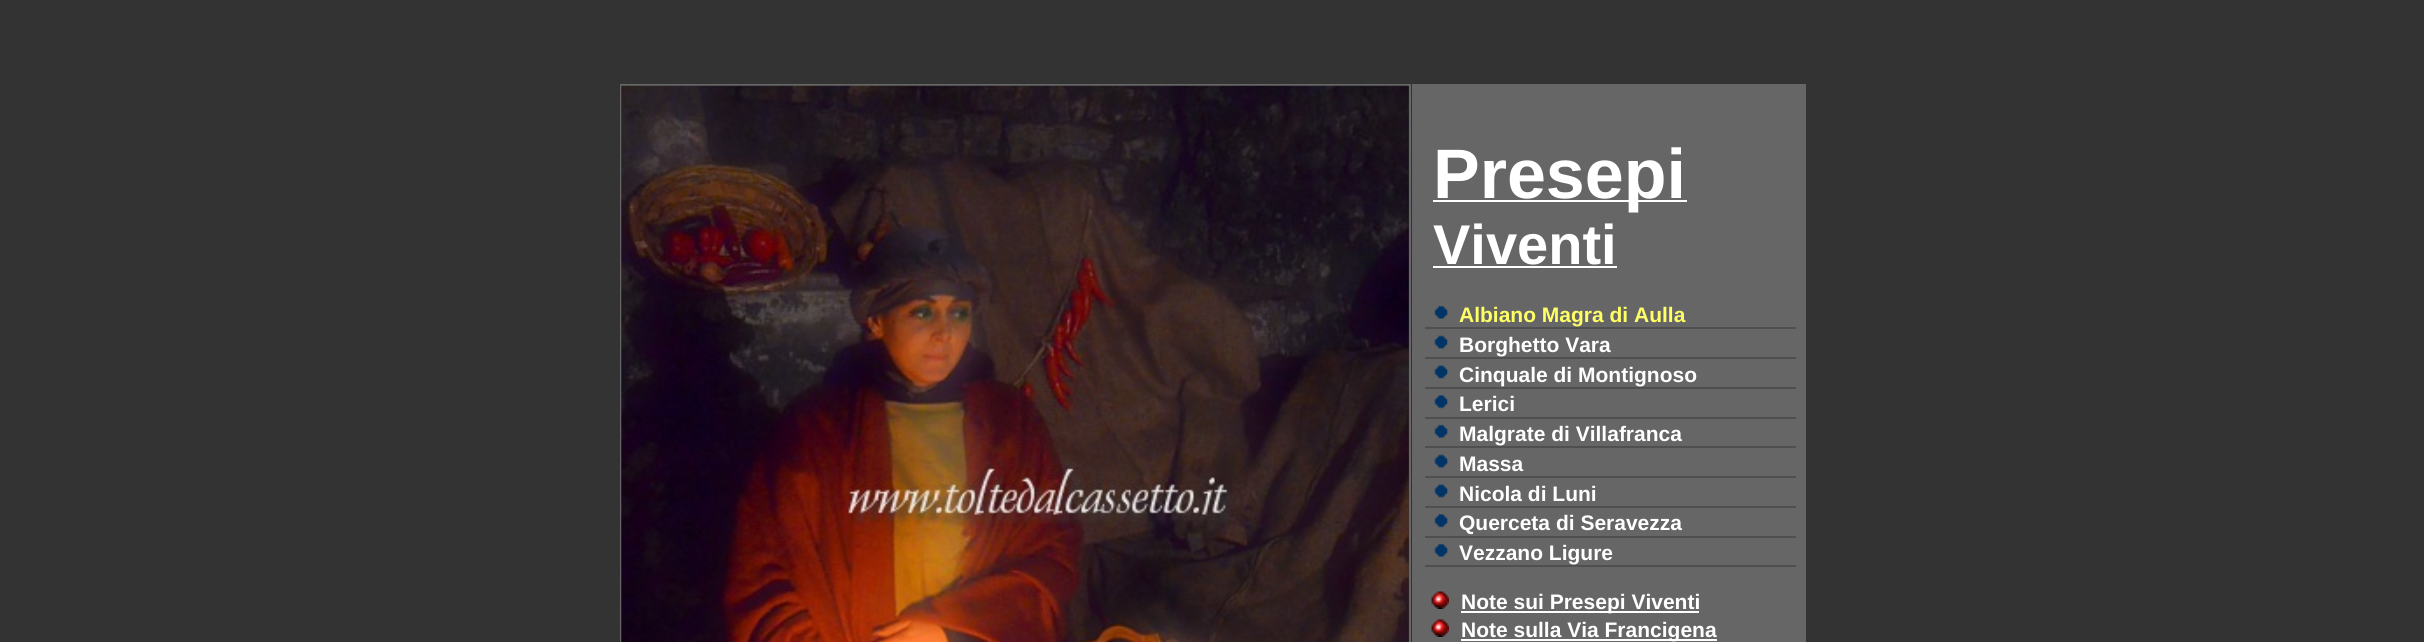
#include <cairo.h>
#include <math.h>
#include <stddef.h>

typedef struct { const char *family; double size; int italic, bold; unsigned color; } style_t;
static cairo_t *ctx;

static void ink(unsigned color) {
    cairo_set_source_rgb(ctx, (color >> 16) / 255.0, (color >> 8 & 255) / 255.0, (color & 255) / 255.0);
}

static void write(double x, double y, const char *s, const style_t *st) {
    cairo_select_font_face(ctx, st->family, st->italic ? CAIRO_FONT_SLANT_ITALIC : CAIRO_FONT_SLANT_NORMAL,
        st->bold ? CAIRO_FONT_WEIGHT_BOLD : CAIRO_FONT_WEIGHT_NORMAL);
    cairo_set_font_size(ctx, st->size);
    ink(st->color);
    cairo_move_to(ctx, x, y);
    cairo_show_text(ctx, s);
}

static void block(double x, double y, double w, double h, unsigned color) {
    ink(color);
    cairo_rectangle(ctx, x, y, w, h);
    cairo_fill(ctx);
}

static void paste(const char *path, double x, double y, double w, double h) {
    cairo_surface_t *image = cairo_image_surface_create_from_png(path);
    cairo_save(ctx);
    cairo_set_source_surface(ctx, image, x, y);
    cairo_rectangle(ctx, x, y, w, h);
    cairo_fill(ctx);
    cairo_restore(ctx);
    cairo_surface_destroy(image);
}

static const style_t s1 = {"Liberation Sans", 70, 0, 1, 0xffffff};
static const style_t s2 = {"Liberation Sans", 56, 0, 1, 0xffffff};
static const style_t s3 = {"Liberation Sans", 21, 0, 1, 0xffff66};
static const style_t s4 = {"Liberation Sans", 21, 0, 1, 0xffffff};

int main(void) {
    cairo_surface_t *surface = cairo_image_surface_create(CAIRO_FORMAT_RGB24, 2424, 642);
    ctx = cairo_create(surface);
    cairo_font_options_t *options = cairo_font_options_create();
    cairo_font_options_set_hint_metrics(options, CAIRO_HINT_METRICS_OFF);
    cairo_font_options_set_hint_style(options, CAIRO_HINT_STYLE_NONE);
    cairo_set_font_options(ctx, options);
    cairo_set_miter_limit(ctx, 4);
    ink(0x333333);
    cairo_paint(ctx);
    cairo_rectangle(ctx, 621, 85, 789, 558);
    ink(0x666666);
    cairo_stroke(ctx);
    paste("pic1.png", 621, 85, 788, 557);
    block(1412, 84, 394, 558, 0x666666);
    block(1433, 200, 254, 2, 0xffffff);
    write(1433, 198, "Presepi", &s1);
    write(1433, 264, "Viventi", &s2);
    block(1433, 266, 184, 2, 0xffffff);
    block(1425, 327, 371, 2, 0x4f4f4f);
    paste("pic2.png", 1434, 305, 14, 14);
    write(1459, 322, "Albiano Magra di Aulla", &s3);
    block(1425, 357, 371, 2, 0x4f4f4f);
    paste("pic3.png", 1434, 335, 14, 14);
    write(1459, 352, "Borghetto Vara", &s4);
    block(1425, 387, 371, 2, 0x4f4f4f);
    paste("pic4.png", 1434, 365, 14, 14);
    write(1459, 382, "Cinquale di Montignoso", &s4);
    block(1425, 417, 371, 2, 0x4f4f4f);
    paste("pic5.png", 1434, 395, 14, 14);
    write(1459, 411, "Lerici", &s4);
    block(1425, 446, 371, 2, 0x4f4f4f);
    paste("pic2.png", 1434, 424, 14, 14);
    write(1459, 441, "Malgrate di Villafranca", &s4);
    block(1425, 476, 371, 2, 0x4f4f4f);
    paste("pic3.png", 1434, 454, 14, 14);
    write(1459, 471, "Massa", &s4);
    block(1425, 506, 371, 2, 0x4f4f4f);
    paste("pic4.png", 1434, 484, 14, 14);
    write(1459, 501, "Nicola di Luni", &s4);
    block(1425, 536, 371, 2, 0x4f4f4f);
    paste("pic5.png", 1434, 514, 14, 14);
    write(1459, 530, "Querceta di Seravezza", &s4);
    block(1425, 565, 371, 2, 0x4f4f4f);
    paste("pic2.png", 1434, 543, 14, 14);
    write(1459, 560, "Vezzano Ligure", &s4);
    paste("pic6.png", 1431, 591, 18, 18);
    block(1461, 611, 238, 2, 0xffffff);
    write(1461, 609, "Note sui Presepi Viventi", &s4);
    paste("pic6.png", 1431, 619, 18, 18);
    block(1461, 639, 256, 2, 0xffffff);
    write(1461, 637, "Note sulla Via Francigena", &s4);
    cairo_surface_write_to_png(surface, "screenshot.png");
    cairo_font_options_destroy(options);
    cairo_destroy(ctx);
    cairo_surface_destroy(surface);
    return 0;
}
